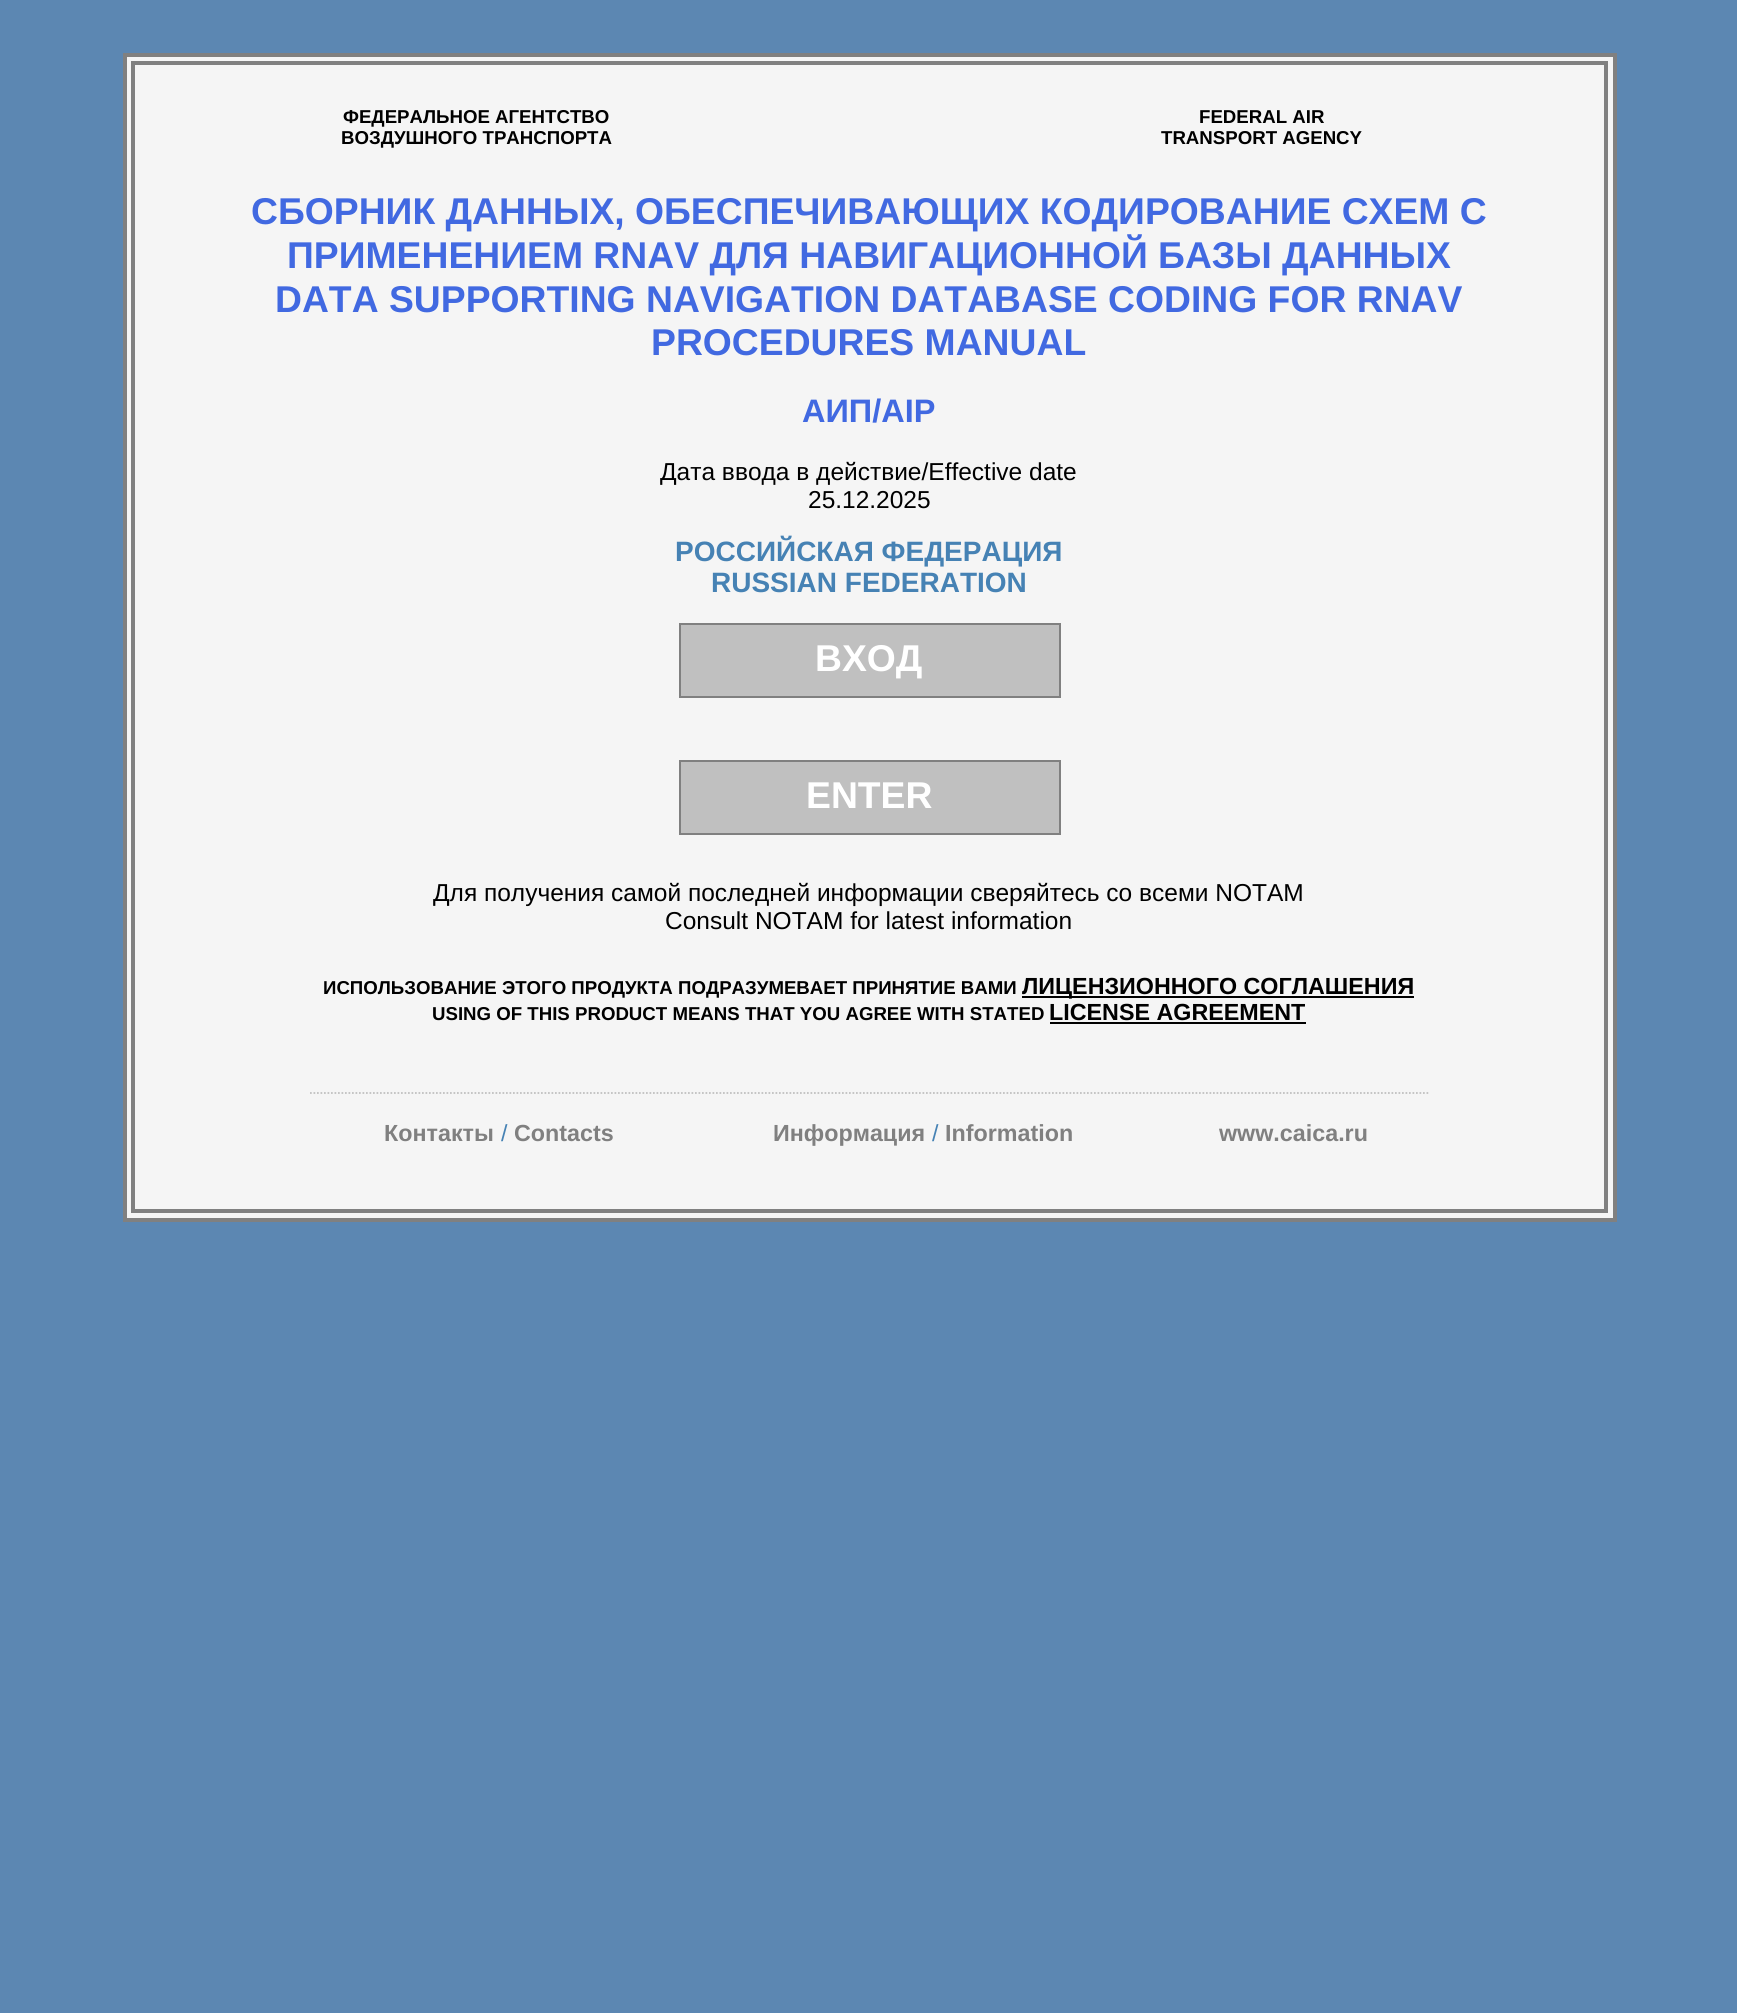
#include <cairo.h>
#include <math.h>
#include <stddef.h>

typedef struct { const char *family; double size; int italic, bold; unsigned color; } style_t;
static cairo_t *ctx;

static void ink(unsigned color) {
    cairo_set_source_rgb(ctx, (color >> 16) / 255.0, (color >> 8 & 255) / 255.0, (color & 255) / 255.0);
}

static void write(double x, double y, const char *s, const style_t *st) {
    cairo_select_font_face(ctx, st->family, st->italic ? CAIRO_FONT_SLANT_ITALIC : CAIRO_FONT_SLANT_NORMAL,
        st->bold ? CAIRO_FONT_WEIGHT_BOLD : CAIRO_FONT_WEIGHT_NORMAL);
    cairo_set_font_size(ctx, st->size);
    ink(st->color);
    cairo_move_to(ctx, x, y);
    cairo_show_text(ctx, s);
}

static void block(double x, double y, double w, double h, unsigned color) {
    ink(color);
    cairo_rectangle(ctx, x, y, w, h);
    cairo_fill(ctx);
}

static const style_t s1 = {"Liberation Sans", 18.65, 0, 1, 0x000000};
static const style_t s2 = {"Liberation Sans", 37.3, 0, 1, 0x4169e1};
static const style_t s3 = {"Liberation Sans", 32.5, 0, 1, 0x4169e1};
static const style_t s4 = {"Liberation Sans", 24.5, 0, 0, 0x000000};
static const style_t s5 = {"Liberation Sans", 28, 0, 1, 0x4682b4};
static const style_t s6 = {"Liberation Sans", 37.3, 0, 1, 0xffffff};
static const style_t s7 = {"Liberation Sans", 23.3, 0, 1, 0x000000};
static const style_t s8 = {"Liberation Sans", 23.3, 0, 1, 0x808080};
static const style_t s9 = {"Liberation Sans", 23.3, 0, 0, 0x4682b4};

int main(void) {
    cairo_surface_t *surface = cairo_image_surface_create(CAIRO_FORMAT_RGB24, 1737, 2013);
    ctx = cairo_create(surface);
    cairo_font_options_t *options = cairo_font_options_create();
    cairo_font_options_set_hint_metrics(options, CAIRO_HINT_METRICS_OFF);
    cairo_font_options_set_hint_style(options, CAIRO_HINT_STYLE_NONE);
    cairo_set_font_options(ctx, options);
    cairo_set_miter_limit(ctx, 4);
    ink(0x5c87b2);
    cairo_paint(ctx);
    ink(0xf5f5f5);
    cairo_rectangle(ctx, 125, 55, 1490, 1165);
    cairo_fill_preserve(ctx);
    ink(0x808080);
    cairo_set_line_width(ctx, 4);
    cairo_stroke(ctx);
    cairo_rectangle(ctx, 133, 63, 1473, 1148);
    cairo_stroke(ctx);
    write(343, 123, "ФЕДЕРАЛЬНОЕ АГЕНТСТВО", &s1);
    write(341, 144, "ВОЗДУШНОГО ТРАНСПОРТА", &s1);
    write(1199, 123, "FEDERAL AIR", &s1);
    write(1161, 144, "TRANSPORT AGENCY", &s1);
    write(251, 224, "СБОРНИК ДАННЫХ, ОБЕСПЕЧИВАЮЩИХ КОДИРОВАНИЕ СХЕМ С", &s2);
    write(287, 268, "ПРИМЕНЕНИЕМ RNAV ДЛЯ НАВИГАЦИОННОЙ БАЗЫ ДАННЫХ", &s2);
    write(275, 312, "DATA SUPPORTING NAVIGATION DATABASE CODING FOR RNAV", &s2);
    write(651, 355, "PROCEDURES MANUAL", &s2);
    write(802, 422, "АИП/AIP", &s3);
    write(660, 480, "Дата ввода в действие/Effective date", &s4);
    write(808, 508, "25.12.2025", &s4);
    write(675, 561, "РОССИЙСКАЯ ФЕДЕРАЦИЯ", &s5);
    write(711, 592, "RUSSIAN FEDERATION", &s5);
    ink(0xc0c0c0);
    cairo_rectangle(ctx, 680, 624, 380, 73);
    cairo_fill_preserve(ctx);
    ink(0x808080);
    cairo_set_line_width(ctx, 2);
    cairo_stroke(ctx);
    write(815, 671, "ВХОД", &s6);
    ink(0xc0c0c0);
    cairo_rectangle(ctx, 680, 761, 380, 73);
    cairo_fill_preserve(ctx);
    ink(0x808080);
    cairo_stroke(ctx);
    write(806, 808, "ENTER", &s6);
    write(433, 901, "Для получения самой последней информации сверяйтесь со всеми NOTAM", &s4);
    write(665, 929, "Consult NOTAM for latest information", &s4);
    write(323, 994, "ИСПОЛЬЗОВАНИЕ ЭТОГО ПРОДУКТА ПОДРАЗУМЕВАЕТ ПРИНЯТИЕ ВАМИ", &s1);
    block(1022, 996, 392, 2, 0x000000);
    write(1022, 994, "ЛИЦЕНЗИОННОГО СОГЛАШЕНИЯ", &s7);
    write(432, 1020, "USING OF THIS PRODUCT MEANS THAT YOU AGREE WITH STATED", &s1);
    write(1049, 1020, "LICENSE AGREEMENT", &s7);
    block(1050, 1022, 256, 2, 0x000000);
    cairo_new_path(ctx);
    cairo_move_to(ctx, 310, 1093);
    cairo_line_to(ctx, 1430, 1093);
    ink(0xc0c0c0);
    cairo_set_line_width(ctx, 1.8);
    cairo_set_dash(ctx, (double[]){1.75, 1.75}, 2, 0);
    cairo_stroke(ctx);
    write(384, 1141, "Контакты", &s8);
    write(501, 1141, "/", &s9);
    write(514, 1141, "Contacts", &s8);
    write(773, 1141, "Информация", &s8);
    write(932, 1141, "/", &s9);
    write(945, 1141, "Information", &s8);
    write(1219, 1141, "www.caica.ru", &s8);
    cairo_surface_write_to_png(surface, "screenshot.png");
    cairo_font_options_destroy(options);
    cairo_destroy(ctx);
    cairo_surface_destroy(surface);
    return 0;
}
